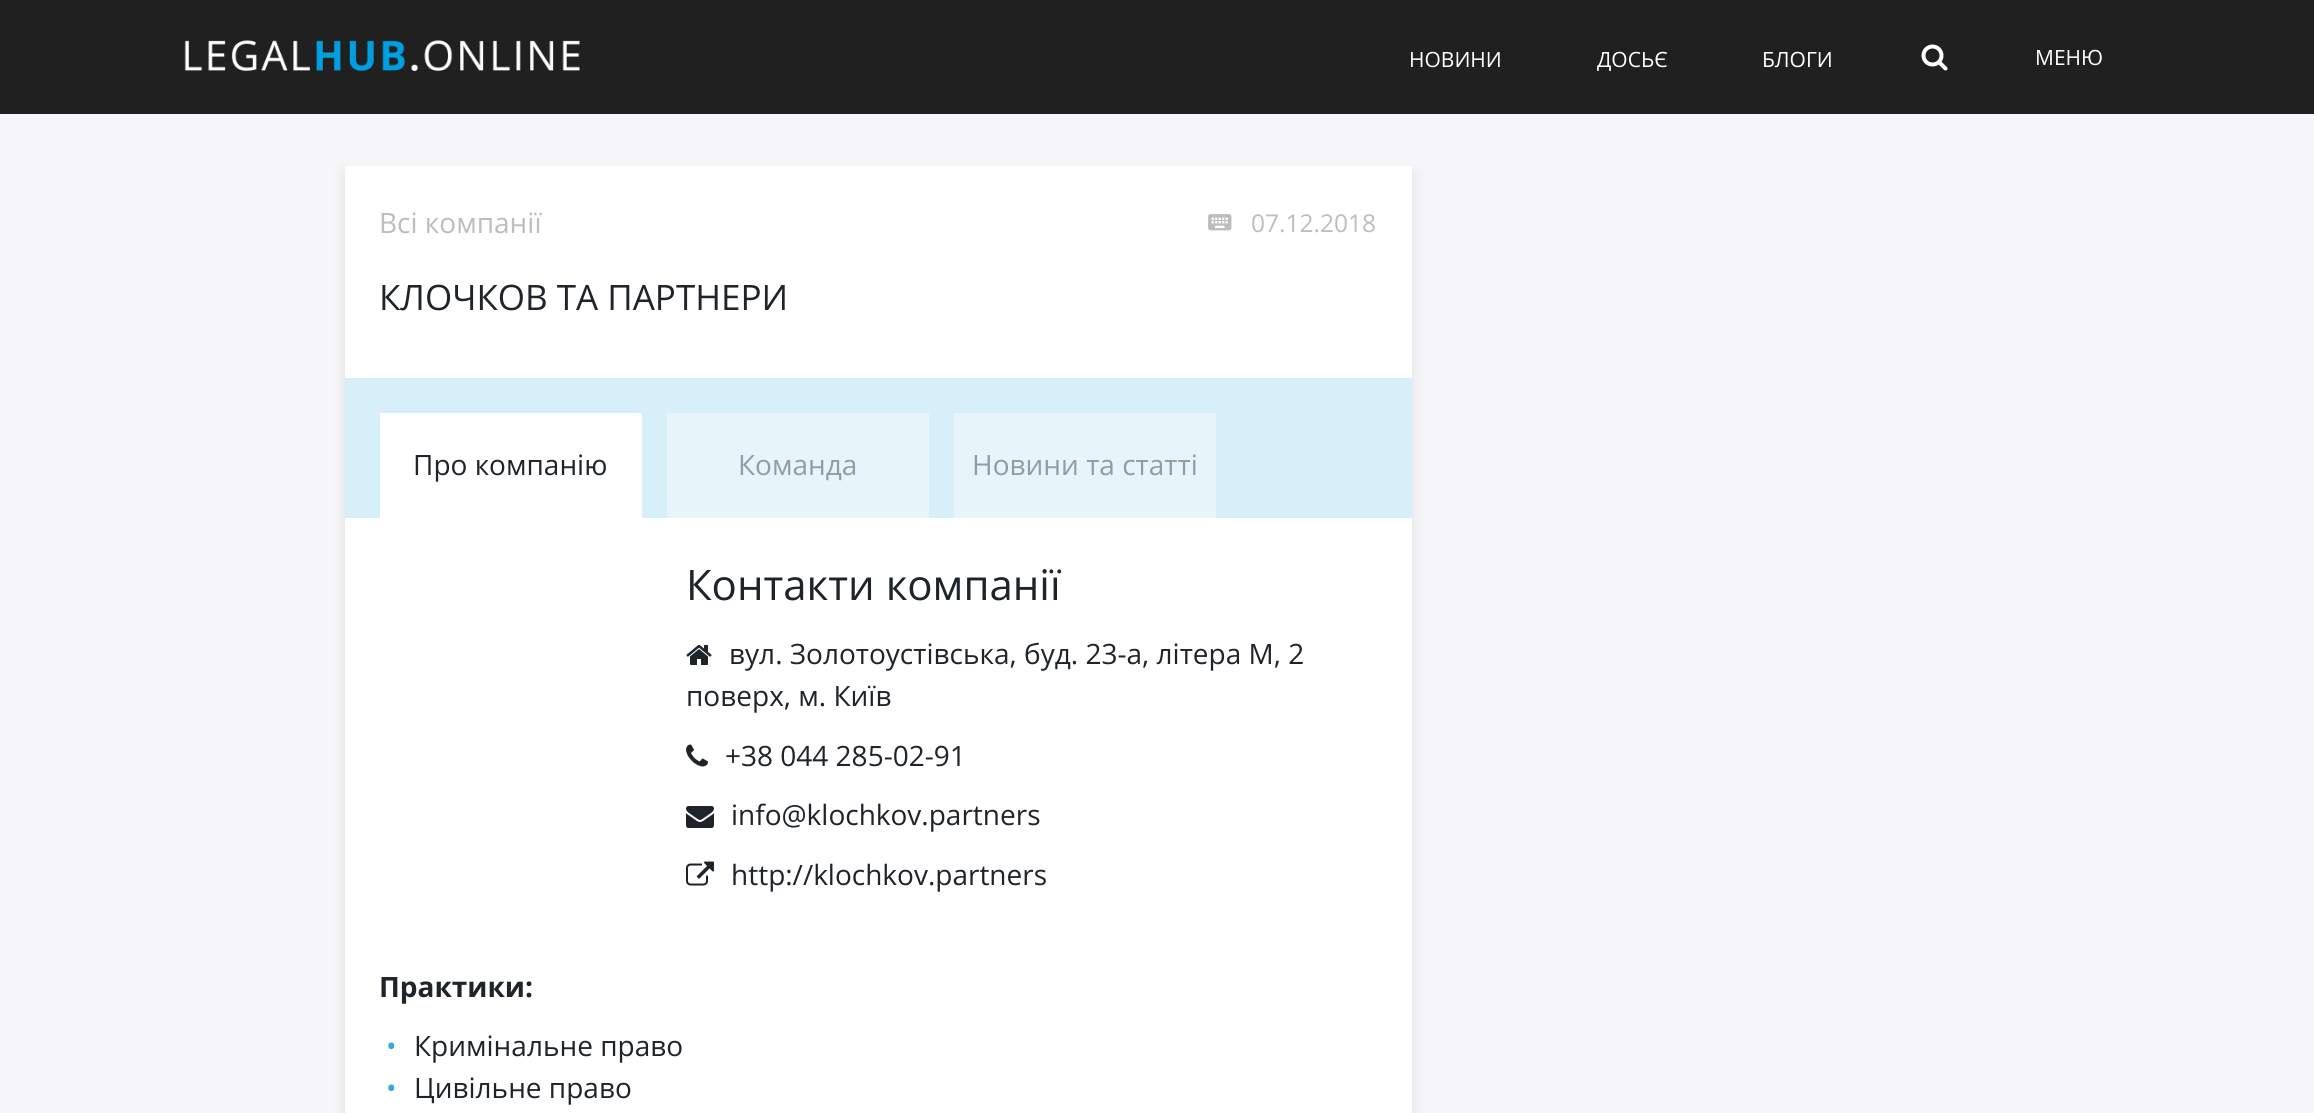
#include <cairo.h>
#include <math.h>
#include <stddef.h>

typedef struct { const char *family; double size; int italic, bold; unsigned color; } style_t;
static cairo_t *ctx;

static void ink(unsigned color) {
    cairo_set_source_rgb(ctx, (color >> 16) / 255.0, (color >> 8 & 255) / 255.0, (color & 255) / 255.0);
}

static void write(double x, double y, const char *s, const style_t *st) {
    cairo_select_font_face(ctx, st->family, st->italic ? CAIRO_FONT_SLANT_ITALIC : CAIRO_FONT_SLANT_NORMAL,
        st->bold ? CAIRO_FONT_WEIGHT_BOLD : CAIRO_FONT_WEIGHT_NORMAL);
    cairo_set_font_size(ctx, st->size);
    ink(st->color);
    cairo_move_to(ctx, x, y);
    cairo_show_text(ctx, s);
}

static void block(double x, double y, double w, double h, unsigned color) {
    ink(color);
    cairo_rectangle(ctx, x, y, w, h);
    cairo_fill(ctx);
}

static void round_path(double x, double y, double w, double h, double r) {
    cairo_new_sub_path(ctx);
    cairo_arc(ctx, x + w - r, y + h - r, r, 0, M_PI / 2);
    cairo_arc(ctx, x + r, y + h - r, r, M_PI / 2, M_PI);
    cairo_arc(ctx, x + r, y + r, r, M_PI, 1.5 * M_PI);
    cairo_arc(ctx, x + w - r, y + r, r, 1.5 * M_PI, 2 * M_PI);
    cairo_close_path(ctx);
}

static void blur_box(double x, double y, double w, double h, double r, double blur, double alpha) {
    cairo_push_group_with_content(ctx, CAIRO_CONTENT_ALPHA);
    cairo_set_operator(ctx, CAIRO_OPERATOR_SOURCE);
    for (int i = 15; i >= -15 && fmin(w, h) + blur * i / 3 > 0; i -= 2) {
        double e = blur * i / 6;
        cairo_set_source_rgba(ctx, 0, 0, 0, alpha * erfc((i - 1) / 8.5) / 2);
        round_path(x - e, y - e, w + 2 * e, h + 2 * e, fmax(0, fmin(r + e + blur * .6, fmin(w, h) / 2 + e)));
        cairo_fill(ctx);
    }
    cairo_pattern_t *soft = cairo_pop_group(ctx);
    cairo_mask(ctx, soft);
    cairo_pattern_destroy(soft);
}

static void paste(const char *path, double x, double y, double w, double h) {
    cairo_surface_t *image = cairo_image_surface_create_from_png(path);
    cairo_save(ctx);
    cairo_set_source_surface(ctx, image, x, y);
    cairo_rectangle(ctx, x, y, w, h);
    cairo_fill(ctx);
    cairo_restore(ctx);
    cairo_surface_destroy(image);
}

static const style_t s1 = {"Open Sans", 21, 0, 0, 0xffffff};
static const style_t s2 = {"Open Sans", 28, 0, 0, 0xbcbdbf};
static const style_t s3 = {"Open Sans", 24.5, 0, 0, 0xbcbdbf};
static const style_t s4 = {"Open Sans", 35, 0, 0, 0x1e242a};
static const style_t s5 = {"Open Sans", 28, 0, 0, 0x1e242a};
static const style_t s6 = {"Open Sans", 28, 0, 0, 0x8d9ea6};
static const style_t s7 = {"Open Sans", 42, 0, 0, 0x1e242a};
static const style_t s8 = {"Open Sans", 28, 0, 1, 0x1e242a};
static const style_t s9 = {"Open Sans", 28, 0, 0, 0x32aadd};

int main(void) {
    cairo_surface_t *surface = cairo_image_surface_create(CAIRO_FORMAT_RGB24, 2314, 1113);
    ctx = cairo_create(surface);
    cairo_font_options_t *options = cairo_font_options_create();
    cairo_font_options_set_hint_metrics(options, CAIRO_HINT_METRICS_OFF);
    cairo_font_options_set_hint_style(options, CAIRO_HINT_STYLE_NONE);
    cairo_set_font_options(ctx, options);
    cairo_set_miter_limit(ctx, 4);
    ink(0xf7f7fa);
    cairo_paint(ctx);
    block(0, 0, 2314, 114, 0x202020);
    paste("pic1.png", 184, 40, 397, 31);
    write(1409, 67, "НОВИНИ", &s1);
    write(1597, 67, "ДОСЬЄ", &s1);
    write(1762, 67, "БЛОГИ", &s1);
    paste("pic2.png", 1921, 44, 27, 27);
    write(2035, 65, "МЕНЮ", &s1);
    ink(0xd1d1d1);
    blur_box(345, 173, 1067, 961, 0, 7, 0.66);
    block(345, 166, 1067, 212, 0xffffff);
    write(379, 233, "Всі компанії", &s2);
    paste("pic3.png", 1208, 214, 24, 17);
    write(1251, 232, "07.12.2018", &s3);
    write(379, 310, "КЛОЧКОВ ТА ПАРТНЕРИ", &s4);
    block(345, 378, 1067, 140, 0xd7eff9);
    block(380, 413, 262, 105, 0xffffff);
    write(413, 475, "Про компанію", &s5);
    block(667, 413, 262, 105, 0xe7f5fb);
    write(738, 475, "Команда", &s6);
    block(954, 413, 262, 105, 0xe7f5fb);
    write(972, 475, "Новини та статті", &s6);
    block(345, 518, 1067, 595, 0xffffff);
    write(686, 600, "Контакти компанії", &s7);
    paste("pic4.png", 686, 645, 26, 20);
    write(729, 664, "вул. Золотоустiвська, буд. 23-а, лiтера М, 2", &s5);
    write(686, 706, "поверх, м. Київ", &s5);
    paste("pic5.png", 686, 744, 22, 23);
    write(725, 766, "+38 044 285-02-91", &s5);
    paste("pic6.png", 686, 806, 28, 22);
    write(731, 825, "info@klochkov.partners", &s5);
    paste("pic7.png", 686, 861, 28, 25);
    write(731, 885, "http://klochkov.partners", &s5);
    write(379, 997, "Практики:", &s8);
    write(386, 1056, "•", &s9);
    write(414, 1056, "Кримінальне право", &s5);
    write(386, 1098, "•", &s9);
    write(414, 1098, "Цивільне право", &s5);
    cairo_surface_write_to_png(surface, "screenshot.png");
    cairo_font_options_destroy(options);
    cairo_destroy(ctx);
    cairo_surface_destroy(surface);
    return 0;
}
